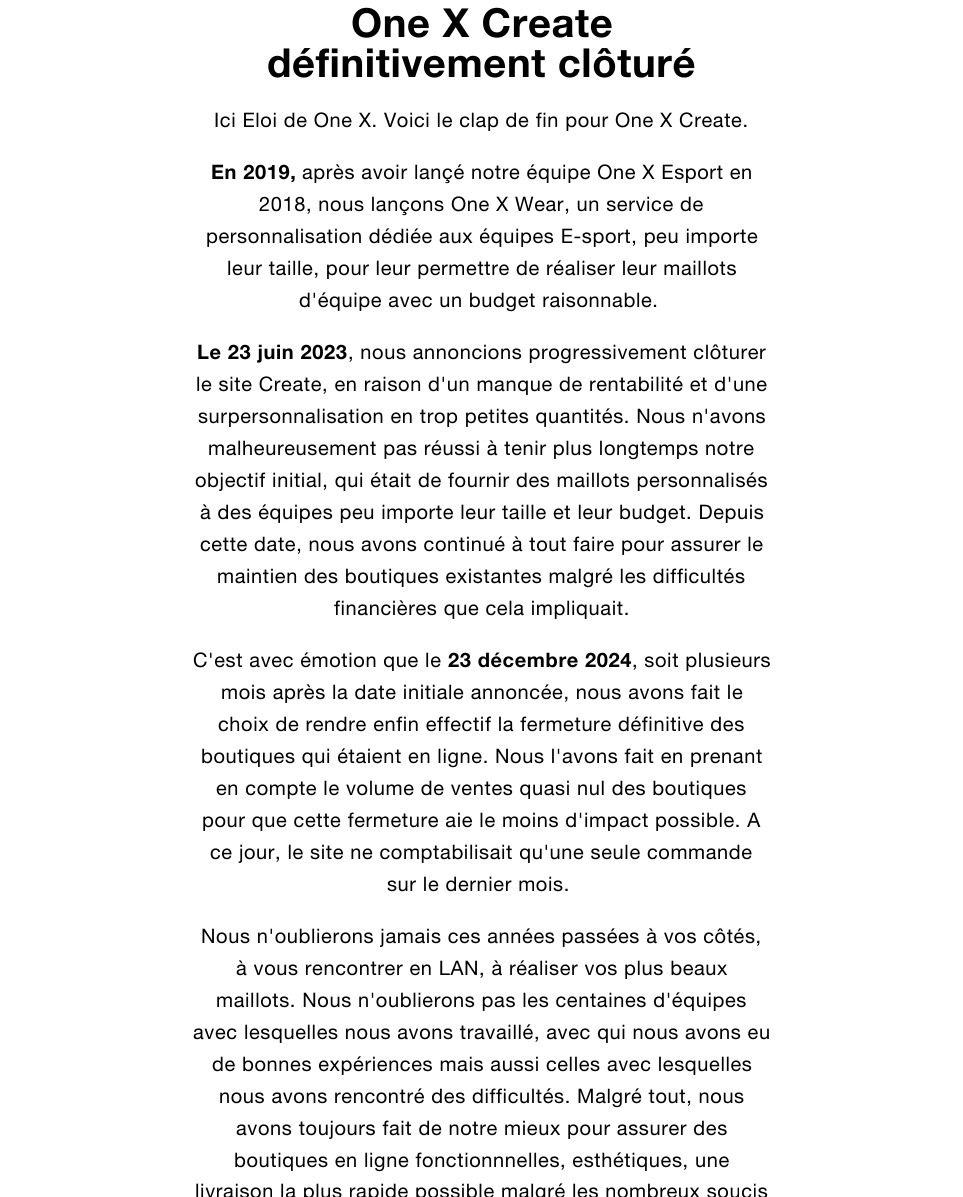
#include <cairo.h>
#include <math.h>
#include <stddef.h>

static cairo_t *ctx;

static void ink(unsigned color) {
    cairo_set_source_rgb(ctx, (color >> 16) / 255.0, (color >> 8 & 255) / 255.0, (color & 255) / 255.0);
}

static void write_spaced(double x, double y, const char *s, double letter, double word) {
    cairo_move_to(ctx, x, y);
    while (*s) {
        char ch[5] = {0};
        int n = 0;
        do ch[n++] = *s++; while ((*s & 0xC0) == 0x80);
        cairo_show_text(ctx, ch);
        cairo_rel_move_to(ctx, letter + word * (*ch == ' '), 0);
    }
}

int main(void) {
    cairo_surface_t *surface = cairo_image_surface_create(CAIRO_FORMAT_RGB24, 963, 1197);
    ctx = cairo_create(surface);
    cairo_font_options_t *options = cairo_font_options_create();
    cairo_font_options_set_hint_metrics(options, CAIRO_HINT_METRICS_OFF);
    cairo_font_options_set_hint_style(options, CAIRO_HINT_STYLE_NONE);
    cairo_set_font_options(ctx, options);
    cairo_set_miter_limit(ctx, 4);
    ink(0xffffff);
    cairo_paint(ctx);
    cairo_select_font_face(ctx, "Helvetica Neue", CAIRO_FONT_SLANT_NORMAL, CAIRO_FONT_WEIGHT_BOLD);
    cairo_set_font_size(ctx, 40);
    ink(0x000000);
    write_spaced(351, 37, "One X Create", 0.62, 0);
    write_spaced(267, 77, "définitivement clôturé", 0.62, 0);
    cairo_select_font_face(ctx, "Helvetica Neue", CAIRO_FONT_SLANT_NORMAL, CAIRO_FONT_WEIGHT_NORMAL);
    cairo_set_font_size(ctx, 20);
    write_spaced(214, 127, "Ici Eloi de One X. Voici le clap de fin pour One X Create.", 0.62, 0);
    cairo_select_font_face(ctx, "Helvetica Neue", CAIRO_FONT_SLANT_NORMAL, CAIRO_FONT_WEIGHT_BOLD);
    write_spaced(211, 179, "En 2019,", 0.62, 0);
    cairo_select_font_face(ctx, "Helvetica Neue", CAIRO_FONT_SLANT_NORMAL, CAIRO_FONT_WEIGHT_NORMAL);
    write_spaced(302, 179, "après avoir lançé notre équipe One X Esport en", 0.62, 0);
    write_spaced(259, 211, "2018, nous lançons One X Wear, un service de", 0.62, 0);
    write_spaced(206, 243, "personnalisation dédiée aux équipes E-sport, peu importe", 0.62, 0);
    write_spaced(227, 275, "leur taille, pour leur permettre de réaliser leur maillots", 0.62, 0);
    write_spaced(299, 307, "d'équipe avec un budget raisonnable.", 0.62, 0);
    cairo_select_font_face(ctx, "Helvetica Neue", CAIRO_FONT_SLANT_NORMAL, CAIRO_FONT_WEIGHT_BOLD);
    write_spaced(197, 359, "Le 23 juin 2023", 0.62, 0);
    cairo_select_font_face(ctx, "Helvetica Neue", CAIRO_FONT_SLANT_NORMAL, CAIRO_FONT_WEIGHT_NORMAL);
    write_spaced(348, 359, ", nous annoncions progressivement clôturer", 0.62, 0);
    write_spaced(196, 391, "le site Create, en raison d'un manque de rentabilité et d'une", 0.62, 0);
    write_spaced(198, 423, "surpersonnalisation en trop petites quantités. Nous n'avons", 0.62, 0);
    write_spaced(208, 455, "malheureusement pas réussi à tenir plus longtemps notre", 0.62, 0);
    write_spaced(195, 487, "objectif initial, qui était de fournir des maillots personnalisés", 0.62, 0);
    write_spaced(200, 519, "à des équipes peu importe leur taille et leur budget. Depuis", 0.62, 0);
    write_spaced(200, 551, "cette date, nous avons continué à tout faire pour assurer le", 0.62, 0);
    write_spaced(217, 583, "maintien des boutiques existantes malgré les difficultés", 0.62, 0);
    write_spaced(334, 615, "financières que cela impliquait.", 0.62, 0);
    write_spaced(193, 667, "C'est avec émotion que le", 0.62, 0);
    cairo_select_font_face(ctx, "Helvetica Neue", CAIRO_FONT_SLANT_NORMAL, CAIRO_FONT_WEIGHT_BOLD);
    write_spaced(448, 667, "23 décembre 2024", 0.62, 0);
    cairo_select_font_face(ctx, "Helvetica Neue", CAIRO_FONT_SLANT_NORMAL, CAIRO_FONT_WEIGHT_NORMAL);
    write_spaced(632, 667, ", soit plusieurs", 0.62, 0);
    write_spaced(221, 699, "mois après la date initiale annoncée, nous avons fait le", 0.62, 0);
    write_spaced(218, 731, "choix de rendre enfin effectif la fermeture définitive des", 0.62, 0);
    write_spaced(201, 763, "boutiques qui étaient en ligne. Nous l'avons fait en prenant", 0.62, 0);
    write_spaced(216, 795, "en compte le volume de ventes quasi nul des boutiques", 0.62, 0);
    write_spaced(202, 827, "pour que cette fermeture aie le moins d'impact possible. A", 0.62, 0);
    write_spaced(210, 859, "ce jour, le site ne comptabilisait qu'une seule commande", 0.62, 0);
    write_spaced(387, 891, "sur le dernier mois.", 0.62, 0);
    write_spaced(201, 943, "Nous n'oublierons jamais ces années passées à vos côtés,", 0.62, 0);
    write_spaced(236, 975, "à vous rencontrer en LAN, à réaliser vos plus beaux", 0.62, 0);
    write_spaced(216, 1007, "maillots. Nous n'oublierons pas les centaines d'équipes", 0.62, 0);
    write_spaced(193, 1039, "avec lesquelles nous avons travaillé, avec qui nous avons eu", 0.62, 0);
    write_spaced(212, 1071, "de bonnes expériences mais aussi celles avec lesquelles", 0.62, 0);
    write_spaced(219, 1103, "nous avons rencontré des difficultés. Malgré tout, nous", 0.62, 0);
    write_spaced(236, 1135, "avons toujours fait de notre mieux pour assurer des", 0.62, 0);
    write_spaced(234, 1167, "boutiques en ligne fonctionnnelles, esthétiques, une", 0.62, 0);
    write_spaced(195, 1198, "livraison la plus rapide possible malgré les nombreux soucis", 0.62, 0);
    cairo_surface_write_to_png(surface, "screenshot.png");
    cairo_font_options_destroy(options);
    cairo_destroy(ctx);
    cairo_surface_destroy(surface);
    return 0;
}
